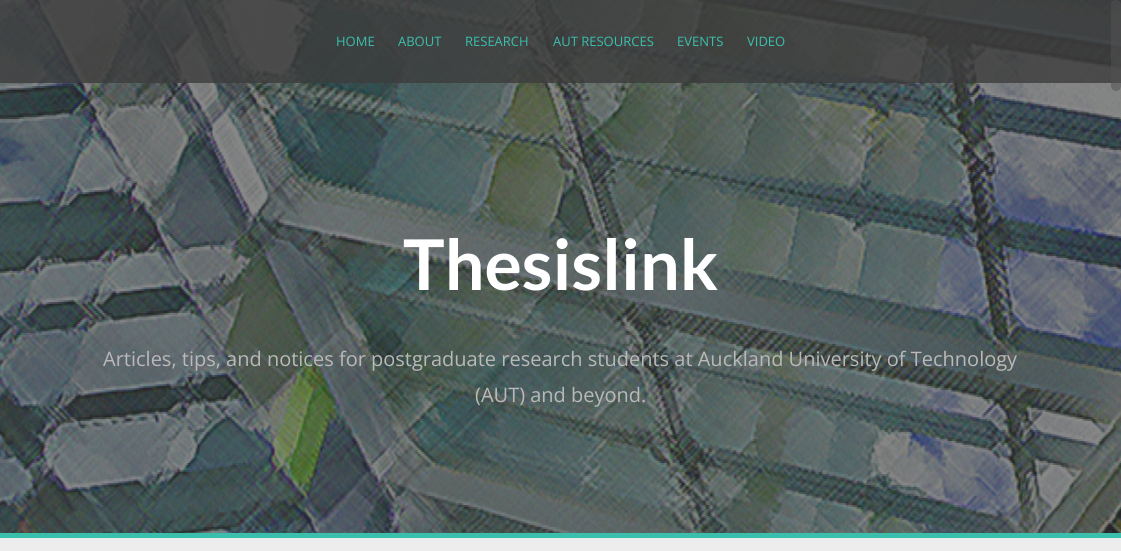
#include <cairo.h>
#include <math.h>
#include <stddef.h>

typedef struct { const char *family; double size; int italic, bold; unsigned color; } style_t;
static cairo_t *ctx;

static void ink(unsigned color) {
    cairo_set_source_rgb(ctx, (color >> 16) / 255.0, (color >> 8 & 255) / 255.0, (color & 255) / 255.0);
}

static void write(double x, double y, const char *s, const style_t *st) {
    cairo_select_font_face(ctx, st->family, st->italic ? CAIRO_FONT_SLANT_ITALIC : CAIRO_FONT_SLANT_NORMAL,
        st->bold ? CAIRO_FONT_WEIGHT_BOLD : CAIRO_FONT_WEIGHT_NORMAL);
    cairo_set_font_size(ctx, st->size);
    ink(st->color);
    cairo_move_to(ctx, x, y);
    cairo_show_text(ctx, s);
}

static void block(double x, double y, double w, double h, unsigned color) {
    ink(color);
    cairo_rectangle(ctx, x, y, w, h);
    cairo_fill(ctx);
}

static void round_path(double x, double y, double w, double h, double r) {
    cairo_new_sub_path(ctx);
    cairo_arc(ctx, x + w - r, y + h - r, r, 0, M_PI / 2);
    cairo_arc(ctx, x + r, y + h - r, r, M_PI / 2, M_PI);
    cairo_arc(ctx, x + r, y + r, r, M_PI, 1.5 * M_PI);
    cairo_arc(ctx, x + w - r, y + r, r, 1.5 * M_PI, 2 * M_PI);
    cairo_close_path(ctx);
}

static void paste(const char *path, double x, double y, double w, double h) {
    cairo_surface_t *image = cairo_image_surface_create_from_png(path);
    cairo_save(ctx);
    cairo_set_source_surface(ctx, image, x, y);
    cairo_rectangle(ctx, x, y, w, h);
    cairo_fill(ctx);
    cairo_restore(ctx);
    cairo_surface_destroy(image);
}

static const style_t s1 = {"Open Sans", 13, 0, 0, 0x3bbfad};
static const style_t s2 = {"Lato", 70, 0, 1, 0xffffff};
static const style_t s3 = {"Open Sans", 20, 0, 0, 0xb9b9b9};

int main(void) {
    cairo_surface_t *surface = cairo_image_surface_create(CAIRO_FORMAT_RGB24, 1121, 551);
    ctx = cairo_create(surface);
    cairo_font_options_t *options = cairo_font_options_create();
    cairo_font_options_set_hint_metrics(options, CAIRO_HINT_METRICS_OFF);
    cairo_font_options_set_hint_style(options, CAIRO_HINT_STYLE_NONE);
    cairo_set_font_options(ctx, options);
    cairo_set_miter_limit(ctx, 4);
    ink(0xededed);
    cairo_paint(ctx);
    block(0, 0, 1121, 533, 0x3c3c3c);
    block(0, 533, 1121, 5, 0x3bbfad);
    paste("pic1.png", 0, 0, 1121, 533);
    cairo_set_source_rgba(ctx, 0.235, 0.235, 0.235, 0.8);
    cairo_rectangle(ctx, 0, 0, 1121, 83);
    cairo_fill(ctx);
    write(336, 46, "HOME", &s1);
    write(398, 46, "ABOUT", &s1);
    write(465, 46, "RESEARCH", &s1);
    write(553, 46, "AUT RESOURCES", &s1);
    write(677, 46, "EVENTS", &s1);
    write(747, 46, "VIDEO", &s1);
    write(403, 290, "Thesislink", &s2);
    write(103, 366, "Articles, tips, and notices for postgraduate research students at Auckland University of Technology", &s3);
    write(475, 402, "(AUT) and beyond.", &s3);
    cairo_set_source_rgba(ctx, 0.322, 0.322, 0.322, 0.53);
    round_path(1111, 0, 10, 91, 5);
    cairo_fill(ctx);
    cairo_surface_write_to_png(surface, "screenshot.png");
    cairo_font_options_destroy(options);
    cairo_destroy(ctx);
    cairo_surface_destroy(surface);
    return 0;
}
